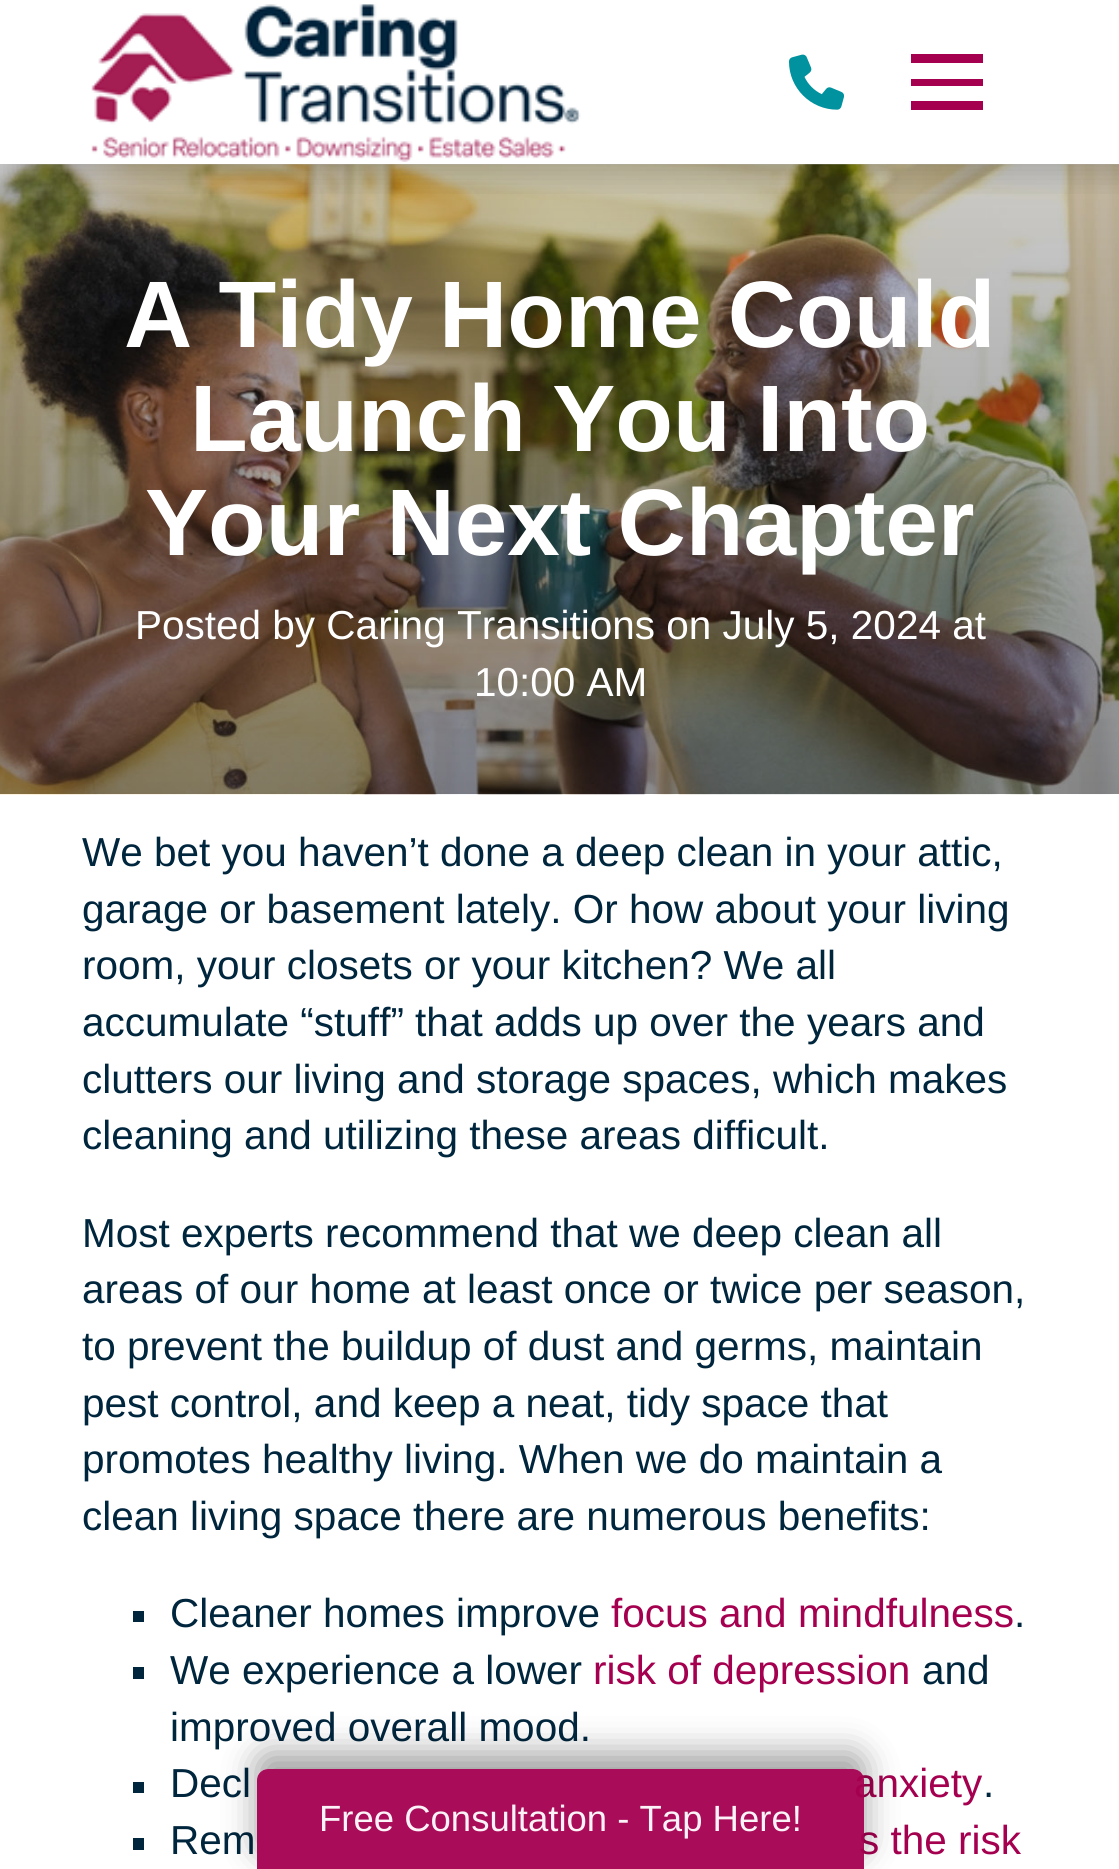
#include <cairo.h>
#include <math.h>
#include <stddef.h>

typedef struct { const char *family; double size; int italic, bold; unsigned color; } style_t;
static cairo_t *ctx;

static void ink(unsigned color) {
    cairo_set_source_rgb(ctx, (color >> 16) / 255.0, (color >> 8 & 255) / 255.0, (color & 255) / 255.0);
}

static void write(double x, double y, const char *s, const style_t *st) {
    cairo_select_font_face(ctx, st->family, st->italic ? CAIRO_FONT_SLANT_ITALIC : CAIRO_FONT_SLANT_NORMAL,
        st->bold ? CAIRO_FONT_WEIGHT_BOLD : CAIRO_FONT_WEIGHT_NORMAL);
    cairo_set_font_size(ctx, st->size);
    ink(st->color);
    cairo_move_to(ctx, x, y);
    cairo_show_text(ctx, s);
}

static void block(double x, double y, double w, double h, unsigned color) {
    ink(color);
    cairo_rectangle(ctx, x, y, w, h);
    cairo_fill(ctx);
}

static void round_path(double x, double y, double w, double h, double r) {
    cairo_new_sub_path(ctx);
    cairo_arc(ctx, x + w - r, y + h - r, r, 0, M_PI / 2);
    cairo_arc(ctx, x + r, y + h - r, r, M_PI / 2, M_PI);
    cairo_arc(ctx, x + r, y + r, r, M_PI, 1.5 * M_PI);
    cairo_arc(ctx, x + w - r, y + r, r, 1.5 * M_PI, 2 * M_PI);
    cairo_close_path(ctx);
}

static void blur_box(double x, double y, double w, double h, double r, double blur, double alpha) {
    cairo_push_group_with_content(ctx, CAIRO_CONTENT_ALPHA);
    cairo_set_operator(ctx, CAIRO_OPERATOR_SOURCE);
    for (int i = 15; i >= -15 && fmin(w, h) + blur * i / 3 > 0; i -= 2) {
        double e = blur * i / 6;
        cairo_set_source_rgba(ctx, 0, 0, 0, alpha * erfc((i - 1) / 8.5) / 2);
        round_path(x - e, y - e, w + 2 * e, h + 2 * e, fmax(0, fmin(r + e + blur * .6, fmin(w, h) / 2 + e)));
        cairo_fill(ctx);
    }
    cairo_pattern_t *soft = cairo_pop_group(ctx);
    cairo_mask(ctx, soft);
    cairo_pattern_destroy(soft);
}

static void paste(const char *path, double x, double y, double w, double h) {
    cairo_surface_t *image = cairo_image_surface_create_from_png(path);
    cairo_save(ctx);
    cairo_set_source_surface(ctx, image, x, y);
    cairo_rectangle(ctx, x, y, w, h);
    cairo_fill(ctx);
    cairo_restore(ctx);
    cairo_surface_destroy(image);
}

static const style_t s1 = {"Liberation Sans", 94.5, 0, 1, 0xffffff};
static const style_t s2 = {"Liberation Sans", 40.5, 0, 0, 0xffffff};
static const style_t s3 = {"Liberation Sans", 40.5, 0, 0, 0x00263e};
static const style_t s4 = {"Liberation Sans", 40.5, 0, 0, 0xa50050};
static const style_t s5 = {"Liberation Sans", 36.5, 0, 0, 0xfbf3f7};

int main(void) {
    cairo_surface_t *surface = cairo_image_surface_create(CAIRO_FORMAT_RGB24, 1119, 1869);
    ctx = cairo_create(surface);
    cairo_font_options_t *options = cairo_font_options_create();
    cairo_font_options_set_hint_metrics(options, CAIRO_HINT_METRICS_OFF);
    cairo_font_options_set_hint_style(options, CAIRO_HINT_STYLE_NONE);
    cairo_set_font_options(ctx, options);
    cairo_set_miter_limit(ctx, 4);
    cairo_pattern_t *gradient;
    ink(0xffffff);
    cairo_paint(ctx);
    paste("pic3.png", 0, 164, 1119, 631);
    gradient = cairo_pattern_create_linear(560, 164, 560, 794);
    cairo_pattern_add_color_stop_rgba(gradient, 0, 0, 0, 0, 0.2);
    cairo_pattern_add_color_stop_rgba(gradient, 1, 0, 0, 0, 0.45);
    cairo_set_source(ctx, gradient);
    cairo_pattern_destroy(gradient);
    cairo_rectangle(ctx, 0, 164, 1119, 630);
    cairo_fill(ctx);
    cairo_save(ctx);
    cairo_rectangle(ctx, 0, 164, 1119, 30);
    cairo_clip(ctx);
    ink(0x000000);
    blur_box(14, 14, 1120, 164, 0, 13.5, 0.16);
    cairo_restore(ctx);
    paste("pic1.png", 91, 4, 490, 158);
    paste("pic2.png", 789, 54, 55, 56);
    block(911, 54, 72, 9, 0xa50050);
    block(911, 79, 72, 7, 0xa50050);
    block(911, 101, 72, 9, 0xa50050);
    write(124, 347, "A Tidy Home Could", &s1);
    write(190, 451, "Launch You Into", &s1);
    write(145, 555, "Your Next Chapter", &s1);
    write(135, 639, "Posted by Caring Transitions on July 5, 2024 at", &s2);
    write(474, 696, "10:00 AM", &s2);
    write(82, 866, "We bet you haven’t done a deep clean in your attic,", &s3);
    write(82, 923, "garage or basement lately. Or how about your living", &s3);
    write(82, 979, "room, your closets or your kitchen? We all", &s3);
    write(82, 1036, "accumulate “stuff” that adds up over the years and", &s3);
    write(82, 1093, "clutters our living and storage spaces, which makes", &s3);
    write(82, 1149, "cleaning and utilizing these areas difficult.", &s3);
    write(82, 1247, "Most experts recommend that we deep clean all", &s3);
    write(82, 1303, "areas of our home at least once or twice per season,", &s3);
    write(82, 1360, "to prevent the buildup of dust and germs, maintain", &s3);
    write(82, 1417, "pest control, and keep a neat, tidy space that", &s3);
    write(82, 1473, "promotes healthy living. When we do maintain a", &s3);
    write(82, 1530, "clean living space there are numerous benefits:", &s3);
    block(133, 1611, 11, 11, 0x00263e);
    write(170, 1627, "Cleaner homes improve", &s3);
    write(611, 1627, "focus and mindfulness", &s4);
    write(1014, 1627, ".", &s3);
    block(133, 1667, 11, 12, 0x00263e);
    write(170, 1684, "We experience a lower", &s3);
    write(593, 1684, "risk of depression", &s4);
    write(922, 1684, "and", &s3);
    write(170, 1741, "improved overall mood.", &s3);
    block(133, 1782, 11, 11, 0x00263e);
    write(170, 1797, "Decl", &s3);
    write(854, 1797, "anxiety", &s4);
    write(983, 1797, ".", &s3);
    block(133, 1838, 11, 12, 0x00263e);
    write(170, 1854, "Rem", &s3);
    write(859, 1854, "s the risk", &s4);
    cairo_save(ctx);
    cairo_set_fill_rule(ctx, CAIRO_FILL_RULE_EVEN_ODD);
    cairo_new_path(ctx);
    cairo_move_to(ctx, 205, 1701);
    cairo_line_to(ctx, 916, 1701);
    cairo_line_to(ctx, 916, 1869);
    cairo_line_to(ctx, 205, 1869);
    cairo_close_path(ctx);
    cairo_move_to(ctx, 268, 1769);
    cairo_line_to(ctx, 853, 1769);
    cairo_curve_to(ctx, 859, 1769, 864, 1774, 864, 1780);
    cairo_line_to(ctx, 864, 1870);
    cairo_line_to(ctx, 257, 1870);
    cairo_line_to(ctx, 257, 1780);
    cairo_curve_to(ctx, 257, 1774, 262, 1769, 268, 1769);
    cairo_close_path(ctx);
    cairo_clip(ctx);
    ink(0x000000);
    blur_box(257, 1753, 607, 101, 11, 17, 0.38);
    cairo_restore(ctx);
    cairo_set_source_rgba(ctx, 0.647, 0, 0.314, 0.95);
    cairo_new_path(ctx);
    cairo_move_to(ctx, 268, 1769);
    cairo_line_to(ctx, 853, 1769);
    cairo_curve_to(ctx, 859, 1769, 864, 1774, 864, 1780);
    cairo_line_to(ctx, 864, 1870);
    cairo_line_to(ctx, 257, 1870);
    cairo_line_to(ctx, 257, 1780);
    cairo_curve_to(ctx, 257, 1774, 262, 1769, 268, 1769);
    cairo_close_path(ctx);
    cairo_fill(ctx);
    write(319, 1831, "Free Consultation - Tap Here!", &s5);
    cairo_surface_write_to_png(surface, "screenshot.png");
    cairo_font_options_destroy(options);
    cairo_destroy(ctx);
    cairo_surface_destroy(surface);
    return 0;
}
